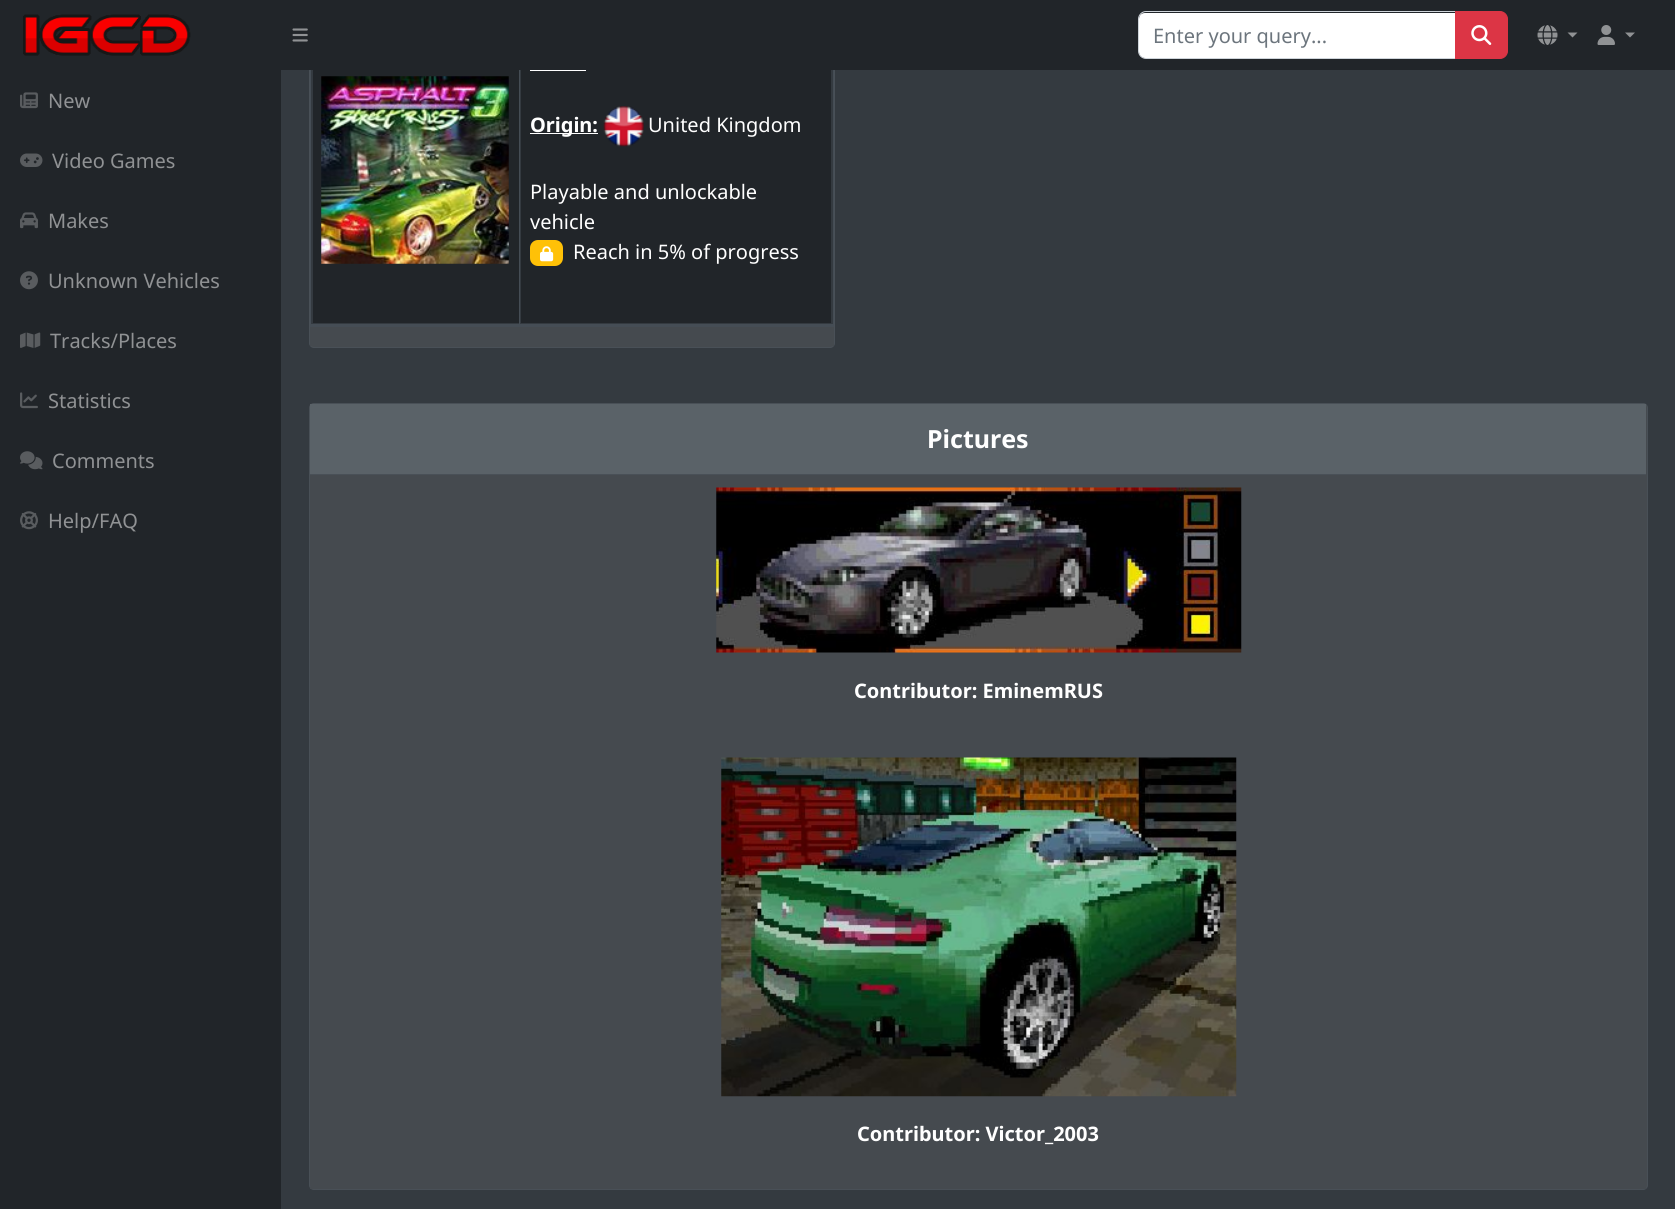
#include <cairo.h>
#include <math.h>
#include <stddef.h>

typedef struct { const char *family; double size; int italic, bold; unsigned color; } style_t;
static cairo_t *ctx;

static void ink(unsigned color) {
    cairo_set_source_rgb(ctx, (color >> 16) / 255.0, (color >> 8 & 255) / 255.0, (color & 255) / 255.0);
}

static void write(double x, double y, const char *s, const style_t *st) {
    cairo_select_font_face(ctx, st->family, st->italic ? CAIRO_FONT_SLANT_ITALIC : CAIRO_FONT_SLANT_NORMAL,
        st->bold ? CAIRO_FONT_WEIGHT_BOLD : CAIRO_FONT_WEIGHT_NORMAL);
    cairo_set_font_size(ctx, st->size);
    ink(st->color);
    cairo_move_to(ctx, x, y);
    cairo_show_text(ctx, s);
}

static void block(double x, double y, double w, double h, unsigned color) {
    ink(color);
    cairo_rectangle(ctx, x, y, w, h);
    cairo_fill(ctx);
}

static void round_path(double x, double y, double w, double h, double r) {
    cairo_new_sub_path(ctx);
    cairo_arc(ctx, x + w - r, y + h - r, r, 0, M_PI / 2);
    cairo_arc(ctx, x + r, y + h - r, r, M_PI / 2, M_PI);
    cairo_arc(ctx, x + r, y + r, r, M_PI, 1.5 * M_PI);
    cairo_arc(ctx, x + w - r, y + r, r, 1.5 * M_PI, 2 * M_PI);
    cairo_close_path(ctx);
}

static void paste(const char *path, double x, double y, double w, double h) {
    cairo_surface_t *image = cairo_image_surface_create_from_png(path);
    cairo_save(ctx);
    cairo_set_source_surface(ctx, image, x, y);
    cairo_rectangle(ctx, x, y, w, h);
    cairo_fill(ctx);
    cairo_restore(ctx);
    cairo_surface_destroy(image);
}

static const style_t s1 = {"Noto Sans", 20, 0, 0, 0x6c757d};
static const style_t s2 = {"Noto Sans", 20, 0, 0, 0x909294};
static const style_t s3 = {"Noto Sans", 20, 0, 1, 0xffffff};
static const style_t s4 = {"Noto Sans", 20, 0, 0, 0xffffff};
static const style_t s5 = {"Noto Sans", 25, 0, 1, 0xffffff};

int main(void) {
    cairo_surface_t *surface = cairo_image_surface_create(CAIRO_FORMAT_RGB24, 1675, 1209);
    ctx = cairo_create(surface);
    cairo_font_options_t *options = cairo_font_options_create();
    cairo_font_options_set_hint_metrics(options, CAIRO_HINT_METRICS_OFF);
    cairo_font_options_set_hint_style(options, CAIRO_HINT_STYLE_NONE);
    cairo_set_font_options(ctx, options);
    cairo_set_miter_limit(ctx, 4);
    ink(0x343a40);
    cairo_paint(ctx);
    ink(0x454a4f);
    round_path(309.5, -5.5, 525, 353, 4.5);
    cairo_fill_preserve(ctx);
    ink(0x495057);
    cairo_set_line_width(ctx, 1);
    cairo_stroke(ctx);
    block(0, 0, 1675, 70, 0x212529);
    paste("pic1.png", 23, 14, 168, 42);
    paste("pic2.png", 292, 28, 16, 14);
    ink(0xffffff);
    cairo_new_path(ctx);
    cairo_move_to(ctx, 1145, 13);
    cairo_line_to(ctx, 1455, 13);
    cairo_line_to(ctx, 1455, 58);
    cairo_line_to(ctx, 1145, 58);
    cairo_curve_to(ctx, 1141.5, 58, 1139, 55.5, 1139, 52);
    cairo_line_to(ctx, 1139, 19);
    cairo_curve_to(ctx, 1139, 15.5, 1141.5, 13, 1145, 13);
    cairo_close_path(ctx);
    cairo_fill(ctx);
    cairo_new_path(ctx);
    cairo_move_to(ctx, 1146, 11.5);
    cairo_line_to(ctx, 1455.5, 11.5);
    cairo_line_to(ctx, 1455.5, 58.5);
    cairo_line_to(ctx, 1146, 58.5);
    cairo_curve_to(ctx, 1142, 58.5, 1138.5, 55, 1138.5, 51);
    cairo_line_to(ctx, 1138.5, 19);
    cairo_curve_to(ctx, 1138.5, 15, 1142, 11.5, 1146, 11.5);
    cairo_close_path(ctx);
    ink(0xced4da);
    cairo_stroke(ctx);
    write(1153, 43, "Enter your query...", &s1);
    ink(0xdc3545);
    cairo_new_path(ctx);
    cairo_move_to(ctx, 1455.5, 11.5);
    cairo_line_to(ctx, 1500, 11.5);
    cairo_curve_to(ctx, 1504, 11.5, 1507.5, 15, 1507.5, 19);
    cairo_line_to(ctx, 1507.5, 51);
    cairo_curve_to(ctx, 1507.5, 55, 1504, 58.5, 1500, 58.5);
    cairo_line_to(ctx, 1455.5, 58.5);
    cairo_close_path(ctx);
    cairo_fill_preserve(ctx);
    cairo_stroke(ctx);
    paste("pic3.png", 1471, 25, 21, 20);
    paste("pic4.png", 1537, 25, 21, 20);
    ink(0x909294);
    cairo_new_path(ctx);
    cairo_move_to(ctx, 1567.5, 32.5);
    cairo_line_to(ctx, 1577.5, 32.5);
    cairo_line_to(ctx, 1572.5, 37.5);
    cairo_close_path(ctx);
    cairo_fill(ctx);
    paste("pic5.png", 1597, 25, 18, 20);
    cairo_new_path(ctx);
    cairo_move_to(ctx, 1625, 32.5);
    cairo_line_to(ctx, 1635, 32.5);
    cairo_line_to(ctx, 1630, 37.5);
    cairo_close_path(ctx);
    cairo_fill(ctx);
    block(0, 70, 281, 1139, 0x212529);
    paste("pic6.png", 20, 92, 18, 17);
    write(48, 108, "New", &s2);
    paste("pic7.png", 20, 153, 23, 14);
    write(52, 168, "Video Games", &s2);
    paste("pic8.png", 20, 212, 18, 17);
    write(48, 228, "Makes", &s2);
    paste("pic9.png", 20, 271, 18, 19);
    write(48, 288, "Unknown Vehicles", &s2);
    paste("pic10.png", 20, 332, 21, 16);
    write(50, 348, "Tracks/Places", &s2);
    paste("pic11.png", 20, 392, 18, 17);
    write(48, 408, "Statistics", &s2);
    paste("pic12.png", 20, 451, 23, 19);
    write(52, 468, "Comments", &s2);
    paste("pic13.png", 20, 511, 18, 19);
    write(48, 528, "Help/FAQ", &s2);
    block(310, 344, 524, 2, 0x454a4f);
    block(311, 70, 522, 254, 0x343a40);
    block(313, 70, 206, 253, 0x212529);
    block(310, 70, 1, 256, 0x454d55);
    paste("pic14.png", 321, 76, 188, 188);
    block(521, 70, 310, 253, 0x212529);
    block(833, 70, 1, 256, 0x454d55);
    block(519, 70, 1, 256, 0x454d55);
    block(310, 324, 524, 3, 0x454d55);
    block(530, 70, 56, 1, 0xffffff);
    block(530, 133, 68, 1, 0xffffff);
    write(530, 132, "Origin:", &s3);
    paste("pic15.png", 603, 106, 41, 41);
    write(648, 132, "United Kingdom", &s4);
    write(530, 199, "Playable and unlockable", &s4);
    write(530, 229, "vehicle", &s4);
    ink(0xffc107);
    round_path(530, 240, 33, 26, 8);
    cairo_fill(ctx);
    paste("pic16.png", 540, 246, 14, 16);
    write(573, 259, "Reach in 5% of progress", &s4);
    ink(0x454a4f);
    round_path(309.5, 403.5, 1338, 786, 4.5);
    cairo_fill_preserve(ctx);
    ink(0x495057);
    cairo_stroke(ctx);
    block(310, 404, 1336, 70, 0x5a6268);
    block(310, 474, 1336, 1, 0x495057);
    write(927, 448, "Pictures", &s5);
    block(310, 1187, 1336, 2, 0x454a4f);
    paste("pic17.png", 716, 487, 526, 166);
    write(854, 698, "Contributor: EminemRUS", &s3);
    paste("pic18.png", 721, 757, 516, 340);
    write(857, 1141, "Contributor: Victor_2003", &s3);
    cairo_surface_write_to_png(surface, "screenshot.png");
    cairo_font_options_destroy(options);
    cairo_destroy(ctx);
    cairo_surface_destroy(surface);
    return 0;
}
